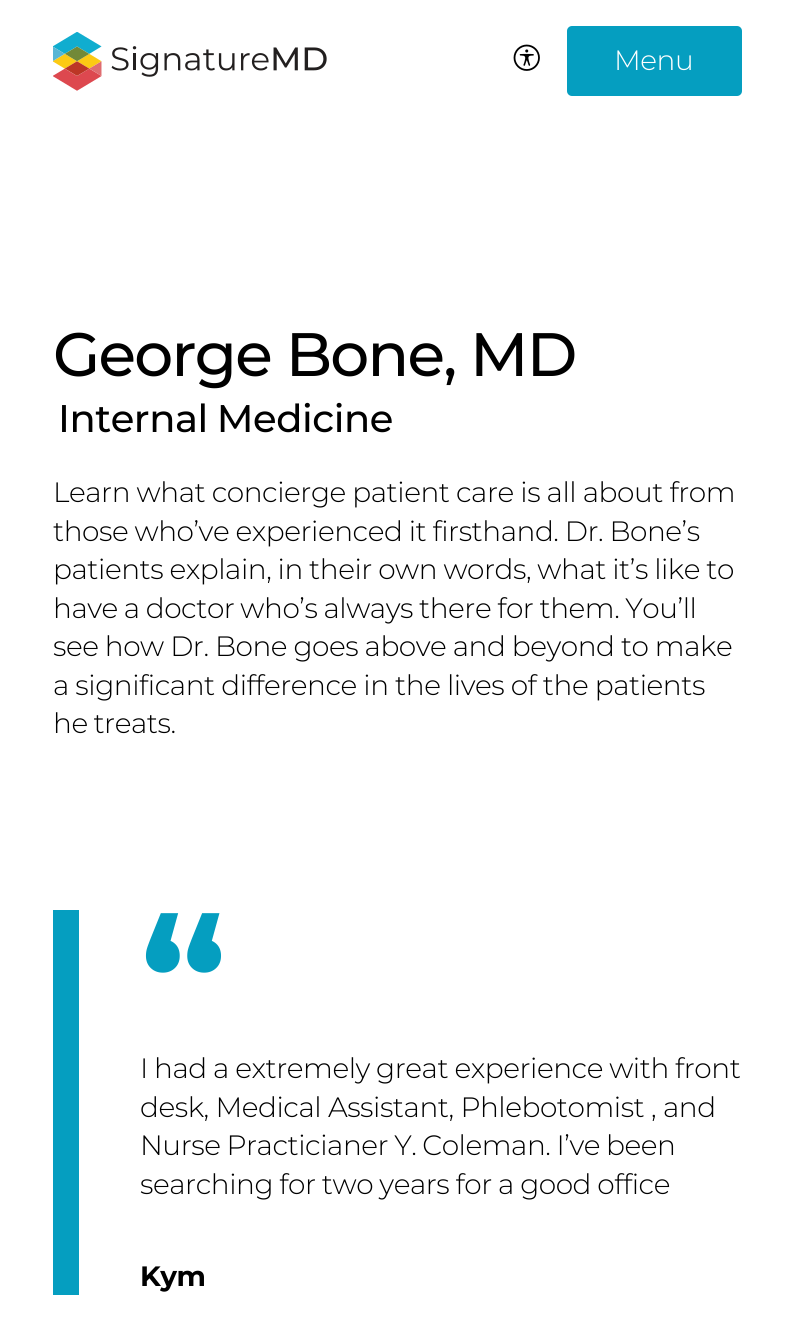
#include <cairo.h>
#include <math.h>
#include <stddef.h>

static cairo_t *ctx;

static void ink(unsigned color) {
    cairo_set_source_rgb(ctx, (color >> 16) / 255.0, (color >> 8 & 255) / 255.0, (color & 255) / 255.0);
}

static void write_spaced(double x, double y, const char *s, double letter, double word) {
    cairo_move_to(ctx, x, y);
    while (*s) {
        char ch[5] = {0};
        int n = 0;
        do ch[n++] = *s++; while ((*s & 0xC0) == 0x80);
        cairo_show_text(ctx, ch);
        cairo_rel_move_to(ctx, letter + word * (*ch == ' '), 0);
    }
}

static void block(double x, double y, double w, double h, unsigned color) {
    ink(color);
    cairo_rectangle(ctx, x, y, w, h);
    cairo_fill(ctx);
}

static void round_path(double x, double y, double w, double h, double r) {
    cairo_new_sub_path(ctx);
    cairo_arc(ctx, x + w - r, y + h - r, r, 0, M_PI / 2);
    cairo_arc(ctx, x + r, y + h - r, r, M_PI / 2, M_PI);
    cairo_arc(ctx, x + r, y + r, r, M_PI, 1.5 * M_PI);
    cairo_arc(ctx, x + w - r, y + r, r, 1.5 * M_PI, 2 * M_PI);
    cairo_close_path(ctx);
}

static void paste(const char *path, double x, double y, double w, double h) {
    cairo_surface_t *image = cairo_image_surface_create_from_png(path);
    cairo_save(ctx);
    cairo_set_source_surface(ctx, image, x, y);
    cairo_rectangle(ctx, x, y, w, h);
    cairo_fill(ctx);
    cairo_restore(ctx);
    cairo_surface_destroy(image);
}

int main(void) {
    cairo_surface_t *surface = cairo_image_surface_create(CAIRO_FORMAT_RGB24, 794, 1338);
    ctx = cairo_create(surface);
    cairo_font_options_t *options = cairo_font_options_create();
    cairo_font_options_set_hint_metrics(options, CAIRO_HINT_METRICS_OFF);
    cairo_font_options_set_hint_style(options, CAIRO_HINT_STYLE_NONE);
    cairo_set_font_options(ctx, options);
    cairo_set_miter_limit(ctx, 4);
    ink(0xffffff);
    cairo_paint(ctx);
    paste("pic1.png", 53, 32, 274, 59);
    paste("pic2.png", 513, 44, 27, 27);
    ink(0x059ec0);
    round_path(567, 26, 175, 70, 5);
    cairo_fill(ctx);
    cairo_select_font_face(ctx, "Montserrat Light", CAIRO_FONT_SLANT_NORMAL, CAIRO_FONT_WEIGHT_NORMAL);
    cairo_set_font_size(ctx, 28);
    ink(0xffffff);
    write_spaced(614, 70, "Menu", -0.45, 0);
    cairo_select_font_face(ctx, "Montserrat Medium", CAIRO_FONT_SLANT_NORMAL, CAIRO_FONT_WEIGHT_NORMAL);
    cairo_set_font_size(ctx, 61.25);
    ink(0x000000);
    write_spaced(53, 376, "George Bone, MD", -1.75, 0);
    cairo_set_font_size(ctx, 38.5);
    write_spaced(58, 432, "Internal Medicine", -0.45, -1);
    cairo_select_font_face(ctx, "Montserrat Light", CAIRO_FONT_SLANT_NORMAL, CAIRO_FONT_WEIGHT_NORMAL);
    cairo_set_font_size(ctx, 28);
    write_spaced(53, 502, "Learn what concierge patient care is all about from", -0.45, -0.25);
    write_spaced(53, 541, "those who’ve experienced it firsthand. Dr. Bone’s", -0.45, -0.5);
    write_spaced(53, 579, "patients explain, in their own words, what it’s like to", -0.45, -0.5);
    write_spaced(53, 618, "have a doctor who’s always there for them. You’ll", -0.45, -0.75);
    write_spaced(53, 656, "see how Dr. Bone goes above and beyond to make", -0.45, -0.4);
    write_spaced(53, 695, "a significant difference in the lives of the patients", -0.45, -0.25);
    write_spaced(53, 733, "he treats.", -0.45, -1);
    block(53, 910, 26, 385, 0x059ec0);
    cairo_select_font_face(ctx, "Montserrat", CAIRO_FONT_SLANT_NORMAL, CAIRO_FONT_WEIGHT_BOLD);
    cairo_set_font_size(ctx, 175);
    write_spaced(140, 1043, "“", -0.45, 0);
    cairo_select_font_face(ctx, "Montserrat Light", CAIRO_FONT_SLANT_NORMAL, CAIRO_FONT_WEIGHT_NORMAL);
    cairo_set_font_size(ctx, 28);
    ink(0x000000);
    write_spaced(140, 1078, "I had a extremely great experience with front", -0.45, -0.5);
    write_spaced(140, 1117, "desk, Medical Assistant, Phlebotomist , and", -0.45, 0);
    write_spaced(140, 1155, "Nurse Practicianer Y. Coleman. I’ve been", -0.45, -0.75);
    write_spaced(140, 1194, "searching for two years for a good office", -0.45, -0.5);
    cairo_select_font_face(ctx, "Montserrat", CAIRO_FONT_SLANT_NORMAL, CAIRO_FONT_WEIGHT_BOLD);
    write_spaced(140, 1286, "Kym", -0.45, 0);
    cairo_surface_write_to_png(surface, "screenshot.png");
    cairo_font_options_destroy(options);
    cairo_destroy(ctx);
    cairo_surface_destroy(surface);
    return 0;
}
